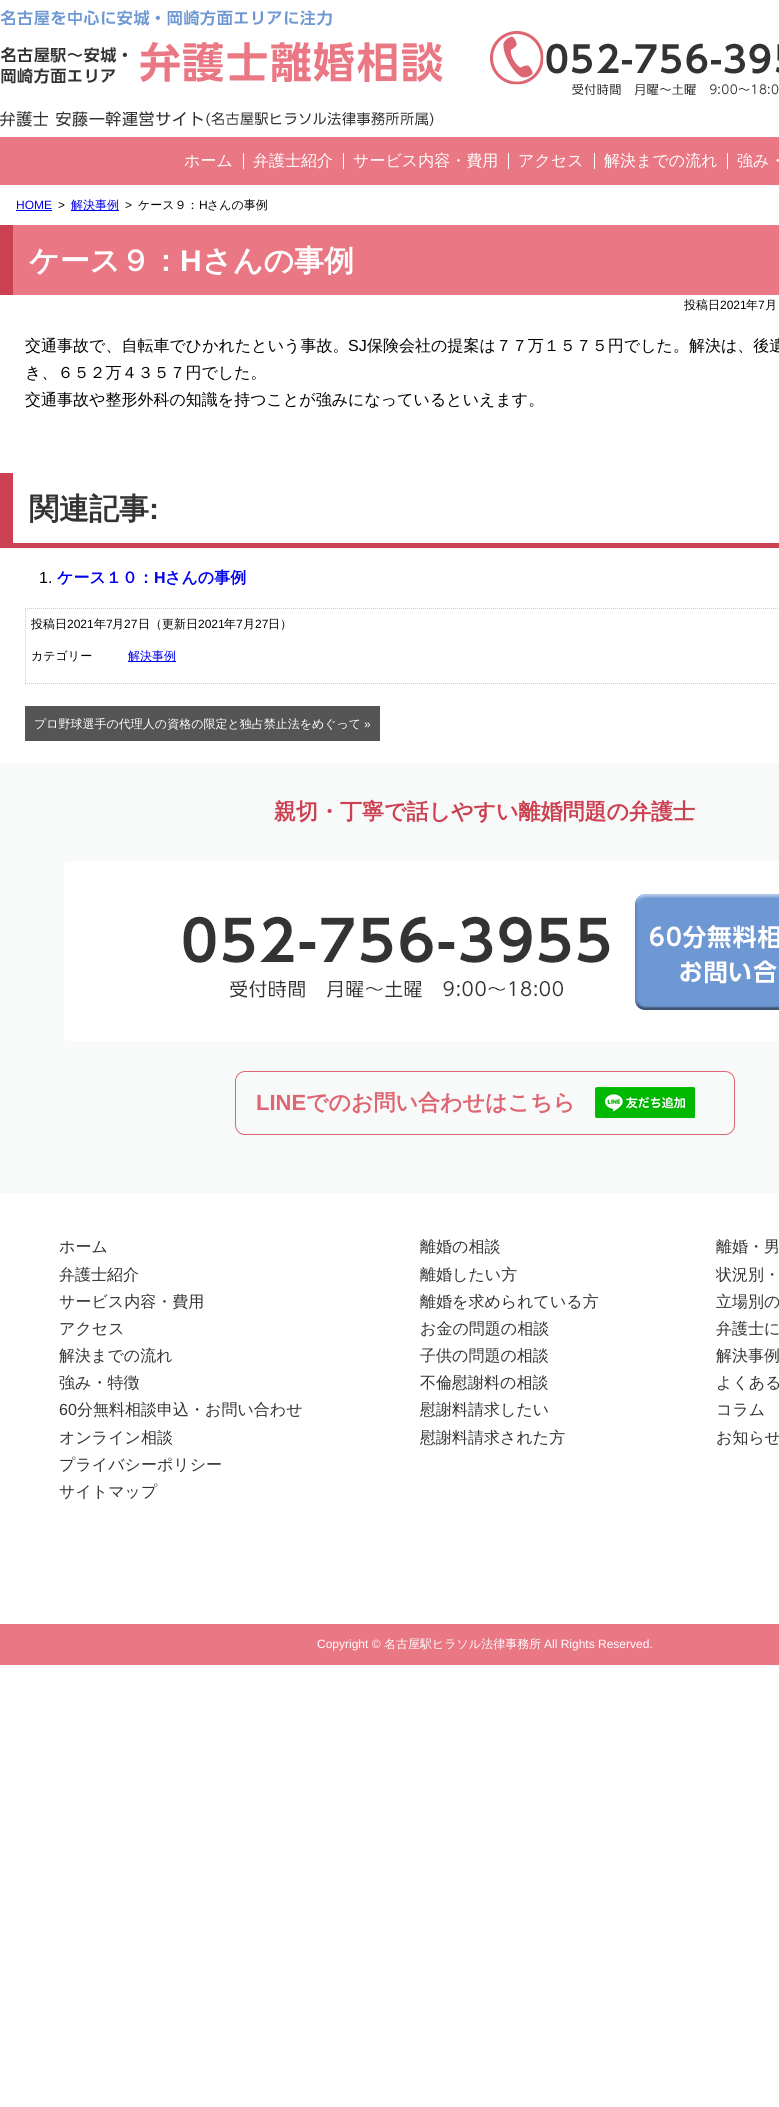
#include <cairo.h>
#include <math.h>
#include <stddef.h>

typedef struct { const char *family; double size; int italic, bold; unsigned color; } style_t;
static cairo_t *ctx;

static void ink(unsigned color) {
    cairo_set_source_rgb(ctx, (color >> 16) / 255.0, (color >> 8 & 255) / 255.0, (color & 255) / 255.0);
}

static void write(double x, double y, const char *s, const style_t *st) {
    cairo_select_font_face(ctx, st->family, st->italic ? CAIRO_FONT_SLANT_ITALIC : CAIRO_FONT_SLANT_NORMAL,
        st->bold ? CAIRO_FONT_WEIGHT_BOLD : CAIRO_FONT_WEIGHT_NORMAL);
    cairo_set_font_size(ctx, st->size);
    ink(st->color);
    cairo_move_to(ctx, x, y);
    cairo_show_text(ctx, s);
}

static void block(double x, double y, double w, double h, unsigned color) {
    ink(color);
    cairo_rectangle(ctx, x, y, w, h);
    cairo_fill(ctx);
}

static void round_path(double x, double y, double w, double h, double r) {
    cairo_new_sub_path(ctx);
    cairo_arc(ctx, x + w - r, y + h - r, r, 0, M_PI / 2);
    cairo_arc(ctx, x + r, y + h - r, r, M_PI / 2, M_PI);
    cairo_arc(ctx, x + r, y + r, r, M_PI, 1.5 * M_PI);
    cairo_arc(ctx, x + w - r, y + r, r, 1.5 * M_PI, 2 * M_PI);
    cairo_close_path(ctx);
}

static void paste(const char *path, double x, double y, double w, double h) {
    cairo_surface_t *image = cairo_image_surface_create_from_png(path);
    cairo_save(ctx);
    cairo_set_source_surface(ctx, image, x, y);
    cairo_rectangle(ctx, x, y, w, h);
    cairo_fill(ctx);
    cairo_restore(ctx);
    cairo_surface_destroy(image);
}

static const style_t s1 = {"WenQuanYi Zen Hei Medium", 16, 0, 0, 0xffffff};
static const style_t s2 = {"Liberation Sans", 12, 0, 0, 0x0000ee};
static const style_t s3 = {"Liberation Sans", 12, 0, 0, 0x000000};
static const style_t s4 = {"WenQuanYi Zen Hei Medium", 12, 0, 0, 0x0000ee};
static const style_t s5 = {"WenQuanYi Zen Hei Medium", 12, 0, 0, 0x000000};
static const style_t s6 = {"WenQuanYi Zen Hei", 30, 0, 1, 0xffffff};
static const style_t s7 = {"Liberation Sans", 30, 0, 1, 0xffffff};
static const style_t s8 = {"WenQuanYi Zen Hei Medium", 16, 0, 0, 0x000000};
static const style_t s9 = {"Liberation Sans", 16, 0, 0, 0x000000};
static const style_t s10 = {"WenQuanYi Zen Hei", 30, 0, 1, 0x333333};
static const style_t s11 = {"Liberation Sans", 30, 0, 1, 0x333333};
static const style_t s12 = {"WenQuanYi Zen Hei", 16, 0, 1, 0x0000ee};
static const style_t s13 = {"Liberation Sans", 16, 0, 1, 0x0000ee};
static const style_t s14 = {"WenQuanYi Zen Hei Medium", 12, 0, 0, 0xffffff};
static const style_t s15 = {"Liberation Sans", 12, 0, 0, 0xffffff};
static const style_t s16 = {"WenQuanYi Zen Hei", 22, 0, 1, 0xcc4151};
static const style_t s17 = {"Liberation Sans", 22, 0, 1, 0xde6572};
static const style_t s18 = {"WenQuanYi Zen Hei", 22, 0, 1, 0xde6572};
static const style_t s19 = {"WenQuanYi Zen Hei Medium", 16, 0, 0, 0x333333};
static const style_t s20 = {"Liberation Sans", 16, 0, 0, 0x333333};

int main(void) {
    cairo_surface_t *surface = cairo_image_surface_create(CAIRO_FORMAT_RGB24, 779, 2107);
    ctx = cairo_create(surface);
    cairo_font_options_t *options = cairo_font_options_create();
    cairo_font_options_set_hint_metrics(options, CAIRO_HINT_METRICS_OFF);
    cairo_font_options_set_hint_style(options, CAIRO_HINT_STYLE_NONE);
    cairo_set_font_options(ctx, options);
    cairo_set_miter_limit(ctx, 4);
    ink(0xffffff);
    cairo_paint(ctx);
    paste("pic1.png", 0, 10, 779, 117);
    block(0, 137, 779, 48, 0xea7784);
    write(184, 166, "ホーム", &s1);
    block(243, 153, 1, 16, 0xffffff);
    write(253, 166, "弁護士紹介", &s1);
    block(343, 153, 1, 16, 0xffffff);
    write(353, 166, "サービス内容・費用", &s1);
    block(508, 153, 1, 16, 0xffffff);
    write(518, 166, "アクセス", &s1);
    block(594, 153, 1, 16, 0xffffff);
    write(604, 166, "解決までの流れ", &s1);
    block(727, 153, 1, 16, 0xffffff);
    write(737, 166, "強み・", &s1);
    write(16, 209, "HOME", &s2);
    block(16, 210, 36, 1, 0x0000ee);
    write(58, 209, ">", &s3);
    block(71, 210, 48, 1, 0x0000ee);
    write(71, 209, "解決事例", &s4);
    write(125, 209, ">", &s3);
    write(138, 209, "ケース９：", &s5);
    write(199, 209, "H", &s3);
    write(207, 209, "さんの事例", &s5);
    block(13, 225, 766, 70, 0xea7784);
    block(0, 225, 13, 70, 0xcc4151);
    write(29, 271, "ケース９：", &s6);
    write(180, 271, "H", &s7);
    write(202, 271, "さんの事例", &s6);
    write(684, 309, "投稿日", &s5);
    write(720, 309, "2021", &s3);
    write(746, 309, "年", &s5);
    write(758, 309, "7", &s3);
    write(765, 309, "月", &s5);
    write(25, 351, "交通事故で、自転車でひかれたという事故。", &s8);
    write(348, 351, "SJ", &s9);
    write(367, 351, "保険会社の提案は７７万１５７５円でした。解決は、後遺", &s8);
    write(25, 378, "き、６５２万４３５７円でした。", &s8);
    write(25, 405, "交通事故や整形外科の知識を持つことが強みになっているといえます。", &s8);
    block(13, 543, 766, 5, 0xcc4151);
    block(0, 473, 13, 75, 0xcc4151);
    write(29, 519, "関連記事", &s10);
    write(149, 519, ":", &s11);
    write(39, 583, "1.", &s9);
    write(57, 583, "ケース１０：", &s12);
    write(154, 583, "H", &s13);
    write(165, 583, "さんの事例", &s12);
    cairo_new_path(ctx);
    cairo_move_to(ctx, 25, 608.5);
    cairo_line_to(ctx, 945, 608.5);
    ink(0xcccccc);
    cairo_set_line_width(ctx, 1);
    cairo_set_dash(ctx, (double[]){1, 1}, 2, 0);
    cairo_stroke(ctx);
    cairo_new_path(ctx);
    cairo_move_to(ctx, 25, 683.5);
    cairo_line_to(ctx, 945, 683.5);
    cairo_stroke(ctx);
    cairo_new_path(ctx);
    cairo_move_to(ctx, 25.5, 608);
    cairo_line_to(ctx, 25.5, 684);
    cairo_stroke(ctx);
    write(31, 628, "投稿日", &s5);
    write(67, 628, "2021", &s3);
    write(94, 628, "年", &s5);
    write(106, 628, "7", &s3);
    write(112, 628, "月", &s5);
    write(124, 628, "27", &s3);
    write(138, 628, "日（更新日", &s5);
    write(198, 628, "2021", &s3);
    write(224, 628, "年", &s5);
    write(236, 628, "7", &s3);
    write(243, 628, "月", &s5);
    write(255, 628, "27", &s3);
    write(268, 628, "日）", &s5);
    write(31, 660, "カテゴリー", &s5);
    block(128, 661, 48, 1, 0x0000ee);
    write(128, 660, "解決事例", &s4);
    block(25, 706, 355, 35, 0x555555);
    write(34, 728, "プロ野球選手の代理人の資格の限定と独占禁止法をめぐって", &s14);
    write(364, 728, "»", &s15);
    block(0, 763, 779, 430, 0xf8f9f9);
    write(274, 819, "親切・丁寧で話しやすい離婚問題の弁護士", &s16);
    paste("pic2.png", 64, 861, 715, 180);
    round_path(235.5, 1071.5, 499, 63, 9.5);
    ink(0xde6572);
    cairo_set_dash(ctx, NULL, 0, 0);
    cairo_stroke(ctx);
    write(256, 1110, "LINE", &s17);
    write(306, 1110, "でのお問い合わせはこちら", &s18);
    paste("pic3.png", 595, 1087, 100, 31);
    write(59, 1252, "ホーム", &s19);
    write(59, 1280, "弁護士紹介", &s19);
    write(59, 1307, "サービス内容・費用", &s19);
    write(59, 1334, "アクセス", &s19);
    write(59, 1361, "解決までの流れ", &s19);
    write(59, 1388, "強み・特徴", &s19);
    write(59, 1415, "60", &s20);
    write(77, 1415, "分無料相談申込・お問い合わせ", &s19);
    write(59, 1443, "オンライン相談", &s19);
    write(59, 1470, "プライバシーポリシー", &s19);
    write(59, 1497, "サイトマップ", &s19);
    write(420, 1252, "離婚の相談", &s19);
    write(420, 1280, "離婚したい方", &s19);
    write(420, 1307, "離婚を求められている方", &s19);
    write(420, 1334, "お金の問題の相談", &s19);
    write(420, 1361, "子供の問題の相談", &s19);
    write(420, 1388, "不倫慰謝料の相談", &s19);
    write(420, 1415, "慰謝料請求したい", &s19);
    write(420, 1443, "慰謝料請求された方", &s19);
    write(716, 1252, "離婚・男", &s19);
    write(716, 1280, "状況別・", &s19);
    write(716, 1307, "立場別の", &s19);
    write(716, 1334, "弁護士に", &s19);
    write(716, 1361, "解決事例", &s19);
    write(716, 1388, "よくある", &s19);
    write(716, 1415, "コラム", &s19);
    write(716, 1443, "お知らせ", &s19);
    block(0, 1624, 779, 41, 0xea7784);
    write(317, 1648, "Copyright ©", &s15);
    write(384, 1648, "名古屋駅ヒラソル法律事務所", &s14);
    write(544, 1648, "All Rights Reserved.", &s15);
    cairo_surface_write_to_png(surface, "screenshot.png");
    cairo_font_options_destroy(options);
    cairo_destroy(ctx);
    cairo_surface_destroy(surface);
    return 0;
}
